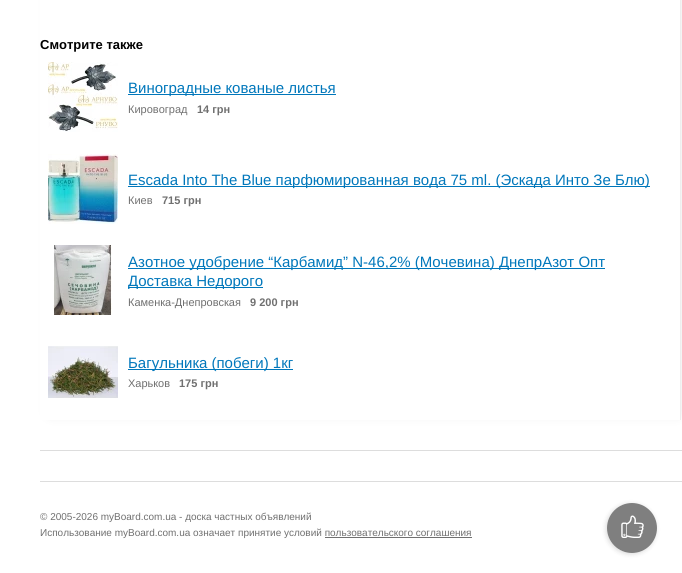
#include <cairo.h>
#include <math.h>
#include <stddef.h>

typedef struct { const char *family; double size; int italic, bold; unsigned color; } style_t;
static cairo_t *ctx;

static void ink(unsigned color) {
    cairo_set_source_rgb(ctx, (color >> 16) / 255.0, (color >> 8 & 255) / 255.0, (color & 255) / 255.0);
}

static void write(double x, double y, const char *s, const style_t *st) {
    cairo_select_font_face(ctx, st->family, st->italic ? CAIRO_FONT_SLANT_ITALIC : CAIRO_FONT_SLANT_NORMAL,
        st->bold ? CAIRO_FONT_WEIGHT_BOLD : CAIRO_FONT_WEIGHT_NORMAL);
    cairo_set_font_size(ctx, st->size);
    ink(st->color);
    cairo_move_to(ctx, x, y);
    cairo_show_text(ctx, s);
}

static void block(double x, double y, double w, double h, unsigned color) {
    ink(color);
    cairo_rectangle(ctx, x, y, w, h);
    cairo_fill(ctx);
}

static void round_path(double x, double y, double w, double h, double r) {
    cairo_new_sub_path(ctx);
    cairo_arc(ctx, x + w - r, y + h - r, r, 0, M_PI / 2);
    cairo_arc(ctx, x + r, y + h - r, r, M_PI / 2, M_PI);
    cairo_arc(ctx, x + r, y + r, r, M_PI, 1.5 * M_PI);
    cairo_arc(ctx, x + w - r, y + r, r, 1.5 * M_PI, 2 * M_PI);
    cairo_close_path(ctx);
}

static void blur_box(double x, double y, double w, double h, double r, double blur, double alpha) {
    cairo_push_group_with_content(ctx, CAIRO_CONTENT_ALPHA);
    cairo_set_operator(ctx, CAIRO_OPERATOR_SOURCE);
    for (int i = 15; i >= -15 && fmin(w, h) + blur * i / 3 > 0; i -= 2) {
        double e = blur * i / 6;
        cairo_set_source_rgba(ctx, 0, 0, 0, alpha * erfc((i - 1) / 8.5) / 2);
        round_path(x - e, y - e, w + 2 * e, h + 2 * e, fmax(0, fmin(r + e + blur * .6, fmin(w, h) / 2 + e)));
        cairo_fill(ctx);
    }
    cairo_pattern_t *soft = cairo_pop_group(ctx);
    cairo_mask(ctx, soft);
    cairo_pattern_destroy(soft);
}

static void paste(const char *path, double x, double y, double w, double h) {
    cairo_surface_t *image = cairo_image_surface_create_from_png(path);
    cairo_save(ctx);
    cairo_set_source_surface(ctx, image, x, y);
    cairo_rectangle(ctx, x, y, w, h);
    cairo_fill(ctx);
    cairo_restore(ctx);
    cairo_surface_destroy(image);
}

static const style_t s1 = {"Liberation Sans", 13, 0, 1, 0x000000};
static const style_t s2 = {"Liberation Sans", 15, 0, 0, 0x0077bb};
static const style_t s3 = {"Liberation Sans", 11, 0, 0, 0x707070};
static const style_t s4 = {"Liberation Sans", 11, 0, 1, 0x707070};
static const style_t s5 = {"Liberation Sans", 10, 0, 0, 0x707070};

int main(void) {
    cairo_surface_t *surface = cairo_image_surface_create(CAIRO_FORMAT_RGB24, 682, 573);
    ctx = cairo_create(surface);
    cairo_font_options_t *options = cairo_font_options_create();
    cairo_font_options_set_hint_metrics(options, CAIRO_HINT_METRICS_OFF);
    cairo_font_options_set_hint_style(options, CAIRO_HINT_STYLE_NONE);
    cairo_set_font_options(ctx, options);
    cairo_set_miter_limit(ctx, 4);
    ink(0xffffff);
    cairo_paint(ctx);
    cairo_save(ctx);
    cairo_set_fill_rule(ctx, CAIRO_FILL_RULE_EVEN_ODD);
    cairo_new_path(ctx);
    cairo_move_to(ctx, 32, 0);
    cairo_line_to(ctx, 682, 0);
    cairo_line_to(ctx, 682, 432);
    cairo_line_to(ctx, 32, 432);
    cairo_close_path(ctx);
    cairo_move_to(ctx, 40, -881);
    cairo_line_to(ctx, 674, -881);
    cairo_curve_to(ctx, 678, -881, 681, -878, 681, -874);
    cairo_line_to(ctx, 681, 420);
    cairo_line_to(ctx, 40, 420);
    cairo_close_path(ctx);
    cairo_clip(ctx);
    ink(0xe8e8e8);
    blur_box(48, -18, 633, 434, 3, 5, 1);
    cairo_restore(ctx);
    ink(0xeeeeee);
    cairo_set_fill_rule(ctx, CAIRO_FILL_RULE_EVEN_ODD);
    cairo_new_path(ctx);
    cairo_move_to(ctx, 40, -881);
    cairo_line_to(ctx, 674, -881);
    cairo_curve_to(ctx, 678, -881, 681, -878, 681, -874);
    cairo_line_to(ctx, 681, 420);
    cairo_line_to(ctx, 40, 420);
    cairo_close_path(ctx);
    cairo_move_to(ctx, 40, -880);
    cairo_line_to(ctx, 674, -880);
    cairo_curve_to(ctx, 677, -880, 680, -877, 680, -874);
    cairo_line_to(ctx, 680, 420);
    cairo_line_to(ctx, 40, 420);
    cairo_close_path(ctx);
    cairo_fill(ctx);
    write(40, 49, "Смотрите также", &s1);
    paste("pic1.png", 48, 62, 70, 70);
    block(128, 94, 208, 1, 0x0077bb);
    write(128, 93, "Виноградные кованые листья", &s2);
    write(128, 113, "Кировоград", &s3);
    write(197, 113, "14 грн", &s4);
    paste("pic2.png", 48, 154, 70, 70);
    block(128, 186, 522, 1, 0x0077bb);
    write(128, 185, "Escada Into The Blue парфюмированная вода 75 ml. (Эскада Инто Зе Блю)", &s2);
    write(128, 204, "Киев", &s3);
    write(162, 204, "715 грн", &s4);
    paste("pic3.png", 53, 245, 59, 70);
    block(128, 268, 477, 1, 0x0077bb);
    write(128, 267, "Азотное удобрение “Карбамид” N-46,2% (Мочевина) ДнепрАзот Опт", &s2);
    block(128, 287, 135, 1, 0x0077bb);
    write(128, 286, "Доставка Недорого", &s2);
    write(128, 306, "Каменка-Днепровская", &s3);
    write(250, 306, "9 200 грн", &s4);
    paste("pic4.png", 48, 346, 70, 52);
    block(128, 369, 165, 1, 0x0077bb);
    write(128, 368, "Багульника (побеги) 1кг", &s2);
    write(128, 387, "Харьков", &s3);
    write(179, 387, "175 грн", &s4);
    cairo_save(ctx);
    cairo_new_path(ctx);
    cairo_move_to(ctx, 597, 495);
    cairo_line_to(ctx, 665, 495);
    cairo_line_to(ctx, 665, 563);
    cairo_line_to(ctx, 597, 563);
    cairo_close_path(ctx);
    cairo_move_to(ctx, 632, 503);
    cairo_curve_to(ctx, 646, 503, 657, 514, 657, 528);
    cairo_curve_to(ctx, 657, 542, 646, 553, 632, 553);
    cairo_curve_to(ctx, 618, 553, 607, 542, 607, 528);
    cairo_curve_to(ctx, 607, 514, 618, 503, 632, 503);
    cairo_close_path(ctx);
    cairo_clip(ctx);
    ink(0x000000);
    blur_box(606, 504, 50, 50, 25, 2.5, 0.15);
    cairo_restore(ctx);
    cairo_set_source_rgba(ctx, 0, 0, 0, 0.5);
    cairo_arc(ctx, 632, 528, 25, 0, 2 * M_PI);
    cairo_fill(ctx);
    paste("pic5.png", 621, 515, 23, 23);
    block(40, 450, 642, 1, 0xdddddd);
    block(40, 481, 642, 1, 0xdddddd);
    write(40, 520, "© 2005-2026 myBoard.com.ua - доска частных объявлений", &s5);
    write(40, 536, "Использование myBoard.com.ua означает принятие условий пользовательского соглашения", &s5);
    block(325, 537, 147, 1, 0x707070);
    cairo_surface_write_to_png(surface, "screenshot.png");
    cairo_font_options_destroy(options);
    cairo_destroy(ctx);
    cairo_surface_destroy(surface);
    return 0;
}
